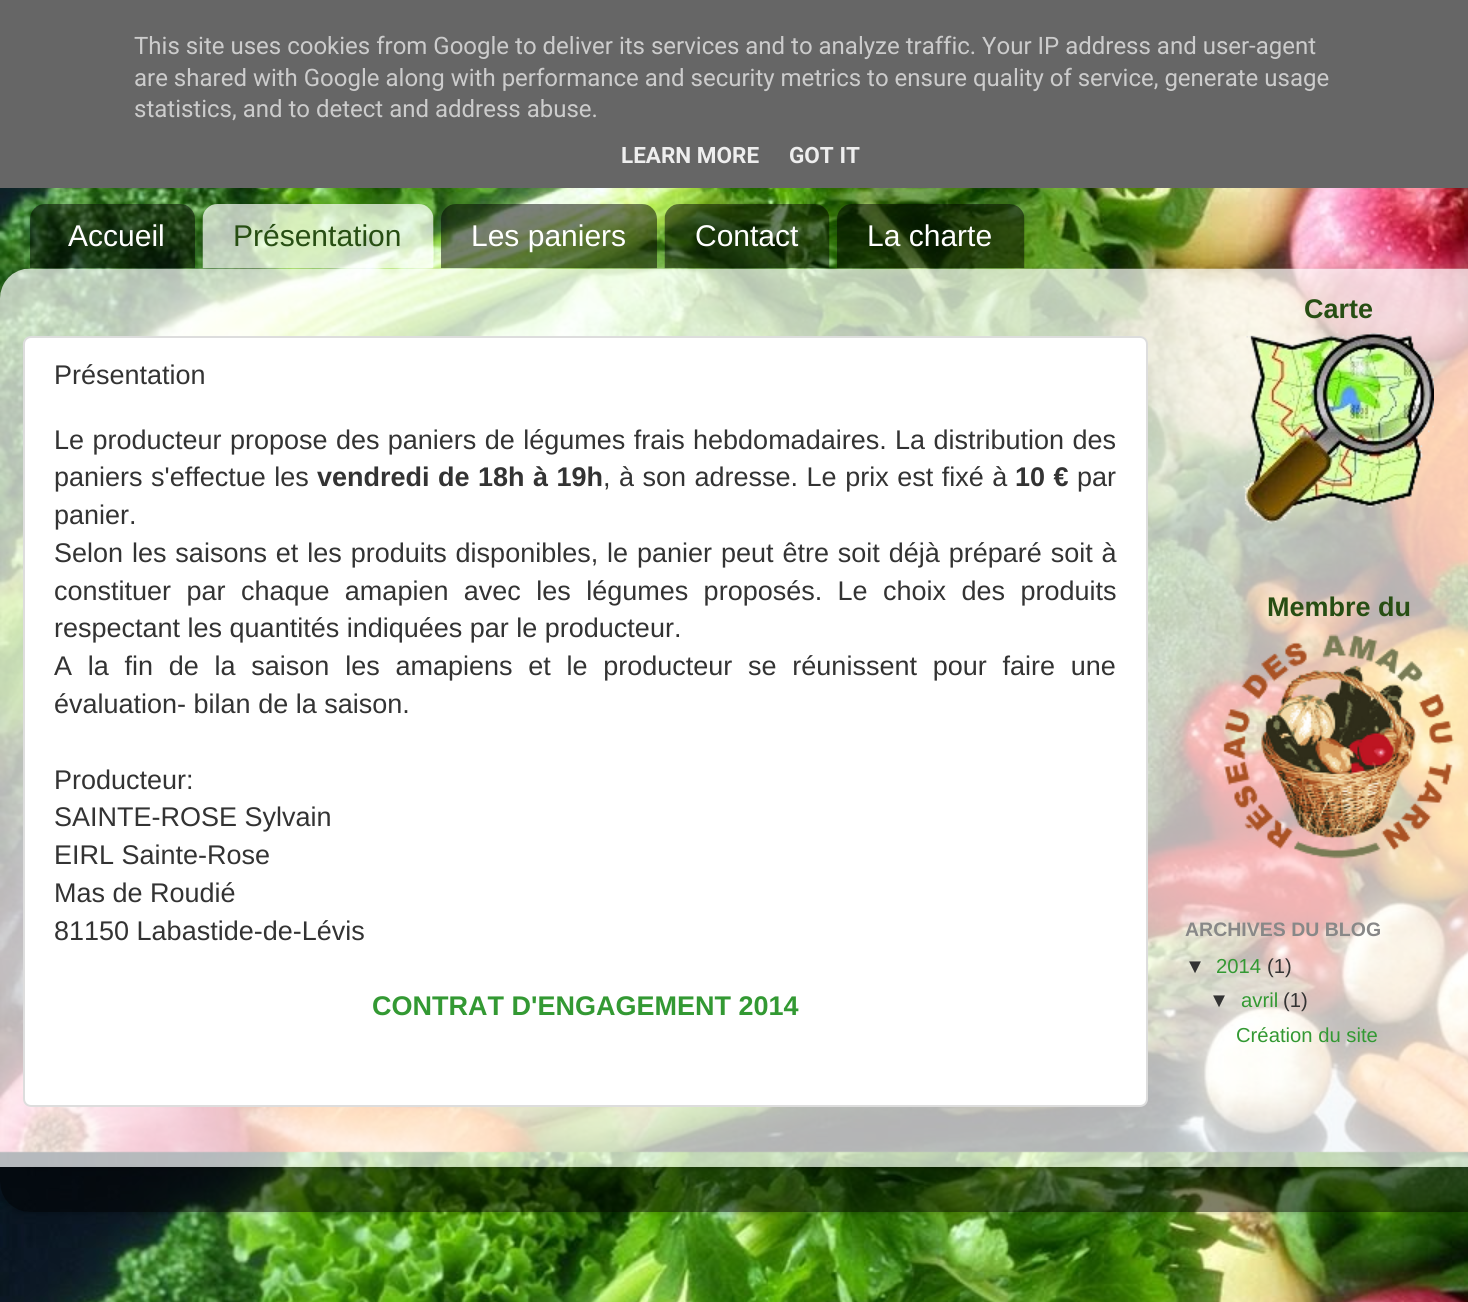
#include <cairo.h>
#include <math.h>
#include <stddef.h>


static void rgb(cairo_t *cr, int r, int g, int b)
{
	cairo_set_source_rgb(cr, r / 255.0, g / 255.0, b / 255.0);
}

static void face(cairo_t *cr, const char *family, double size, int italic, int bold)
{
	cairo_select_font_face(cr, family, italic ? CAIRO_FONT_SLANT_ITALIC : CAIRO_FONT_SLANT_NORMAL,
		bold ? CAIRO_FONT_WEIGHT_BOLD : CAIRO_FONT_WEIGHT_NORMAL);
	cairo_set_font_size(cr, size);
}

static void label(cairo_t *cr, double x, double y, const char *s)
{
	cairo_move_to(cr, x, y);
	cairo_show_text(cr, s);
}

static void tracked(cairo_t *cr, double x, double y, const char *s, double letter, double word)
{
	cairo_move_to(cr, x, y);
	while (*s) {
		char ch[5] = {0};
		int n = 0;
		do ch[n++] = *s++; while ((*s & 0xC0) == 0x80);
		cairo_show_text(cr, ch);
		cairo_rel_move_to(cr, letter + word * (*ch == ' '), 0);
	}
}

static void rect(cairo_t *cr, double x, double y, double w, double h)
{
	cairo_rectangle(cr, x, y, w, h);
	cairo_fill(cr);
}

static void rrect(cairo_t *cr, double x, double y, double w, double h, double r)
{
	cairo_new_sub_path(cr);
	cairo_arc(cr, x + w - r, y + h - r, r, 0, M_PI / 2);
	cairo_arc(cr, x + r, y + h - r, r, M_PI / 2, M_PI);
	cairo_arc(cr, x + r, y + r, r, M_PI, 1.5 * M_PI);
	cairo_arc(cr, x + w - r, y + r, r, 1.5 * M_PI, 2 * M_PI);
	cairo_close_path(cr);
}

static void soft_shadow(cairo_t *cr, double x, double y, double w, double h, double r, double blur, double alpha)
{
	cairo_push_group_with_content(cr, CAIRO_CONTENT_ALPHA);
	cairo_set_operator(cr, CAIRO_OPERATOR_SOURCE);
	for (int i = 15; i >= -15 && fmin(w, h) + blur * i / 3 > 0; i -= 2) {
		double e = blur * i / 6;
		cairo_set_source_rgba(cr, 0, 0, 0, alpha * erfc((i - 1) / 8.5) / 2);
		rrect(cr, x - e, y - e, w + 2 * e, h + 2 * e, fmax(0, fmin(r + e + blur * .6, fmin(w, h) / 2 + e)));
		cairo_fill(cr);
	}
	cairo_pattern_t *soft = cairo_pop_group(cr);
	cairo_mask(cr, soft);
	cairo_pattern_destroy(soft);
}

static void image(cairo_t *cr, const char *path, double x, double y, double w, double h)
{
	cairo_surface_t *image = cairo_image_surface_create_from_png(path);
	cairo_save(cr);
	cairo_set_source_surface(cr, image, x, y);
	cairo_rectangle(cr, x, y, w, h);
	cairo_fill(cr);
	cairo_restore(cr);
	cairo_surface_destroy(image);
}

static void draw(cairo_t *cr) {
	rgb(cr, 255, 255, 255);
	cairo_paint(cr);
	image(cr, "image0.png", 0, 188, 1468, 1114);
	rgb(cr, 102, 102, 102);
	rect(cr, 0, 0, 1468, 188);
	face(cr, "Roboto", 24, 0, 0);
	rgb(cr, 204, 204, 204);
	label(cr, 134, 54, "This site uses cookies from Google to deliver its services and to analyze traffic. Your IP address and user-agent");
	label(cr, 134, 86, "are shared with Google along with performance and security metrics to ensure quality of service, generate usage");
	label(cr, 134, 117, "statistics, and to detect and address abuse.");
	face(cr, "Roboto", 22.5, 0, 1);
	rgb(cr, 238, 238, 238);
	label(cr, 621, 163, "LEARN MORE");
	label(cr, 789, 163, "GOT IT");
	image(cr, "image1.png", 30, 204, 165, 65);
	face(cr, "Liberation Sans", 30, 0, 0);
	rgb(cr, 255, 255, 255);
	label(cr, 68, 246, "Accueil");
	image(cr, "image3.png", 441, 204, 216, 65);
	image(cr, "image4.png", 664, 204, 166, 65);
	image(cr, "image5.png", 837, 204, 188, 65);
	cairo_save(cr);
	cairo_set_fill_rule(cr, CAIRO_FILL_RULE_EVEN_ODD);
	cairo_new_path(cr);
	cairo_move_to(cr, 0, 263);
	cairo_line_to(cr, 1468, 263);
	cairo_line_to(cr, 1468, 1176);
	cairo_line_to(cr, 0, 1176);
	cairo_close_path(cr);
	cairo_move_to(cr, 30, 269);
	cairo_line_to(cr, 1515, 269);
	cairo_curve_to(cr, 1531.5, 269, 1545, 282.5, 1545, 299);
	cairo_line_to(cr, 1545, 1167);
	cairo_line_to(cr, 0, 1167);
	cairo_line_to(cr, 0, 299);
	cairo_curve_to(cr, 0, 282.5, 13.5, 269, 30, 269);
	cairo_close_path(cr);
	cairo_clip(cr);
	rgb(cr, 0, 0, 0);
	soft_shadow(cr, 0, 270, 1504, 899, 30, 2, 0.15);
	cairo_restore(cr);
	image(cr, "image6.png", 0, 268, 1468, 899);
	cairo_save(cr);
	cairo_rectangle(cr, 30, 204, 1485, 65);
	cairo_clip(cr);
	cairo_set_fill_rule(cr, CAIRO_FILL_RULE_EVEN_ODD);
	cairo_new_path(cr);
	cairo_move_to(cr, 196, 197);
	cairo_line_to(cr, 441, 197);
	cairo_line_to(cr, 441, 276);
	cairo_line_to(cr, 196, 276);
	cairo_close_path(cr);
	cairo_move_to(cr, 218, 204);
	cairo_line_to(cr, 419, 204);
	cairo_curve_to(cr, 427.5, 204, 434, 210.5, 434, 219);
	cairo_line_to(cr, 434, 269);
	cairo_line_to(cr, 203, 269);
	cairo_line_to(cr, 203, 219);
	cairo_curve_to(cr, 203, 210.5, 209.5, 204, 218, 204);
	cairo_close_path(cr);
	cairo_clip(cr);
	rgb(cr, 0, 0, 0);
	soft_shadow(cr, 203, 204, 231, 65, 15, 2, 0.15);
	cairo_restore(cr);
	image(cr, "image2.png", 202, 204, 232, 65);
	rgb(cr, 39, 78, 19);
	label(cr, 233, 246, "Présentation");
	rgb(cr, 255, 255, 255);
	label(cr, 471, 246, "Les paniers");
	label(cr, 695, 246, "Contact");
	label(cr, 867, 246, "La charte");
	rrect(cr, 24, 337, 1123, 769, 7);
	cairo_fill_preserve(cr);
	rgb(cr, 221, 221, 221);
	cairo_stroke(cr);
	face(cr, "Liberation Sans", 27, 0, 0);
	rgb(cr, 51, 51, 51);
	label(cr, 54, 384, "Présentation");
	tracked(cr, 54, 449, "Le producteur propose des paniers de légumes frais hebdomadaires. La distribution des", 0, 0.9);
	tracked(cr, 54, 486, "paniers s'effectue les", 0, 1);
	face(cr, "Liberation Sans", 27, 0, 1);
	tracked(cr, 317, 486, "vendredi de 18h à 19h", 0, 1);
	face(cr, "Liberation Sans", 27, 0, 0);
	tracked(cr, 603, 486, ", à son adresse. Le prix est fixé à", 0, 1);
	face(cr, "Liberation Sans", 27, 0, 1);
	tracked(cr, 1015, 486, "10 €", 0, 1);
	face(cr, "Liberation Sans", 27, 0, 0);
	label(cr, 1077, 486, "par");
	label(cr, 54, 524, "panier.");
	tracked(cr, 54, 562, "Selon les saisons et les produits disponibles, le panier peut être soit déjà préparé soit à", 0, 1.4);
	tracked(cr, 54, 600, "constituer par chaque amapien avec les légumes proposés. Le choix des produits", 0, 7.9);
	label(cr, 54, 637, "respectant les quantités indiquées par le producteur.");
	tracked(cr, 54, 675, "A la fin de la saison les amapiens et le producteur se réunissent pour faire une", 0, 8.25);
	label(cr, 54, 713, "évaluation- bilan de la saison.");
	label(cr, 54, 789, "Producteur:");
	label(cr, 54, 826, "SAINTE-ROSE Sylvain");
	label(cr, 54, 864, "EIRL Sainte-Rose");
	label(cr, 54, 902, "Mas de Roudié");
	label(cr, 54, 940, "81150 Labastide-de-Lévis");
	face(cr, "Liberation Sans", 27, 0, 1);
	rgb(cr, 51, 153, 51);
	label(cr, 372, 1015, "CONTRAT D'ENGAGEMENT 2014");
	rgb(cr, 39, 78, 19);
	label(cr, 1304, 318, "Carte");
	image(cr, "image7.png", 1243, 328, 191, 196);
	label(cr, 1267, 616, "Membre du");
	image(cr, "image8.png", 1223, 634, 231, 225);
	face(cr, "Liberation Sans", 19.5, 0, 1);
	rgb(cr, 136, 136, 136);
	label(cr, 1185, 936, "ARCHIVES DU BLOG");
	face(cr, "Liberation Sans", 20.25, 0, 0);
	rgb(cr, 51, 51, 51);
	label(cr, 1185, 973, "▼");
	rgb(cr, 51, 153, 51);
	label(cr, 1216, 973, "2014");
	rgb(cr, 51, 51, 51);
	label(cr, 1267, 973, "(1)");
	label(cr, 1209, 1007, "▼");
	rgb(cr, 51, 153, 51);
	label(cr, 1241, 1007, "avril");
	rgb(cr, 51, 51, 51);
	label(cr, 1283, 1007, "(1)");
	rgb(cr, 51, 153, 51);
	label(cr, 1236, 1042, "Création du site");
	cairo_save(cr);
	cairo_set_fill_rule(cr, CAIRO_FILL_RULE_EVEN_ODD);
	cairo_new_path(cr);
	cairo_move_to(cr, 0, 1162);
	cairo_line_to(cr, 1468, 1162);
	cairo_line_to(cr, 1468, 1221);
	cairo_line_to(cr, 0, 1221);
	cairo_close_path(cr);
	cairo_move_to(cr, 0, 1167);
	cairo_line_to(cr, 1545, 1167);
	cairo_line_to(cr, 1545, 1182);
	cairo_curve_to(cr, 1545, 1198.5, 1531.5, 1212, 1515, 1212);
	cairo_line_to(cr, 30, 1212);
	cairo_curve_to(cr, 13.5, 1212, 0, 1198.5, 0, 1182);
	cairo_close_path(cr);
	cairo_clip(cr);
	rgb(cr, 0, 0, 0);
	soft_shadow(cr, 0, 1169, 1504, 45, 30, 2, 0.15);
	cairo_restore(cr);
	image(cr, "image9.png", 0, 1167, 1468, 45);
}

int main(void) {
	cairo_surface_t *surface = cairo_image_surface_create(CAIRO_FORMAT_RGB24, 1468, 1302);
	cairo_t *cr = cairo_create(surface);
	cairo_font_options_t *options = cairo_font_options_create();
	cairo_font_options_set_hint_metrics(options, CAIRO_HINT_METRICS_OFF);
	cairo_font_options_set_hint_style(options, CAIRO_HINT_STYLE_NONE);
	cairo_set_font_options(cr, options);
	cairo_set_miter_limit(cr, 4);
	draw(cr);
	cairo_surface_write_to_png(surface, "render.png");
	cairo_font_options_destroy(options);
	cairo_destroy(cr);
	cairo_surface_destroy(surface);
	return 0;
}
